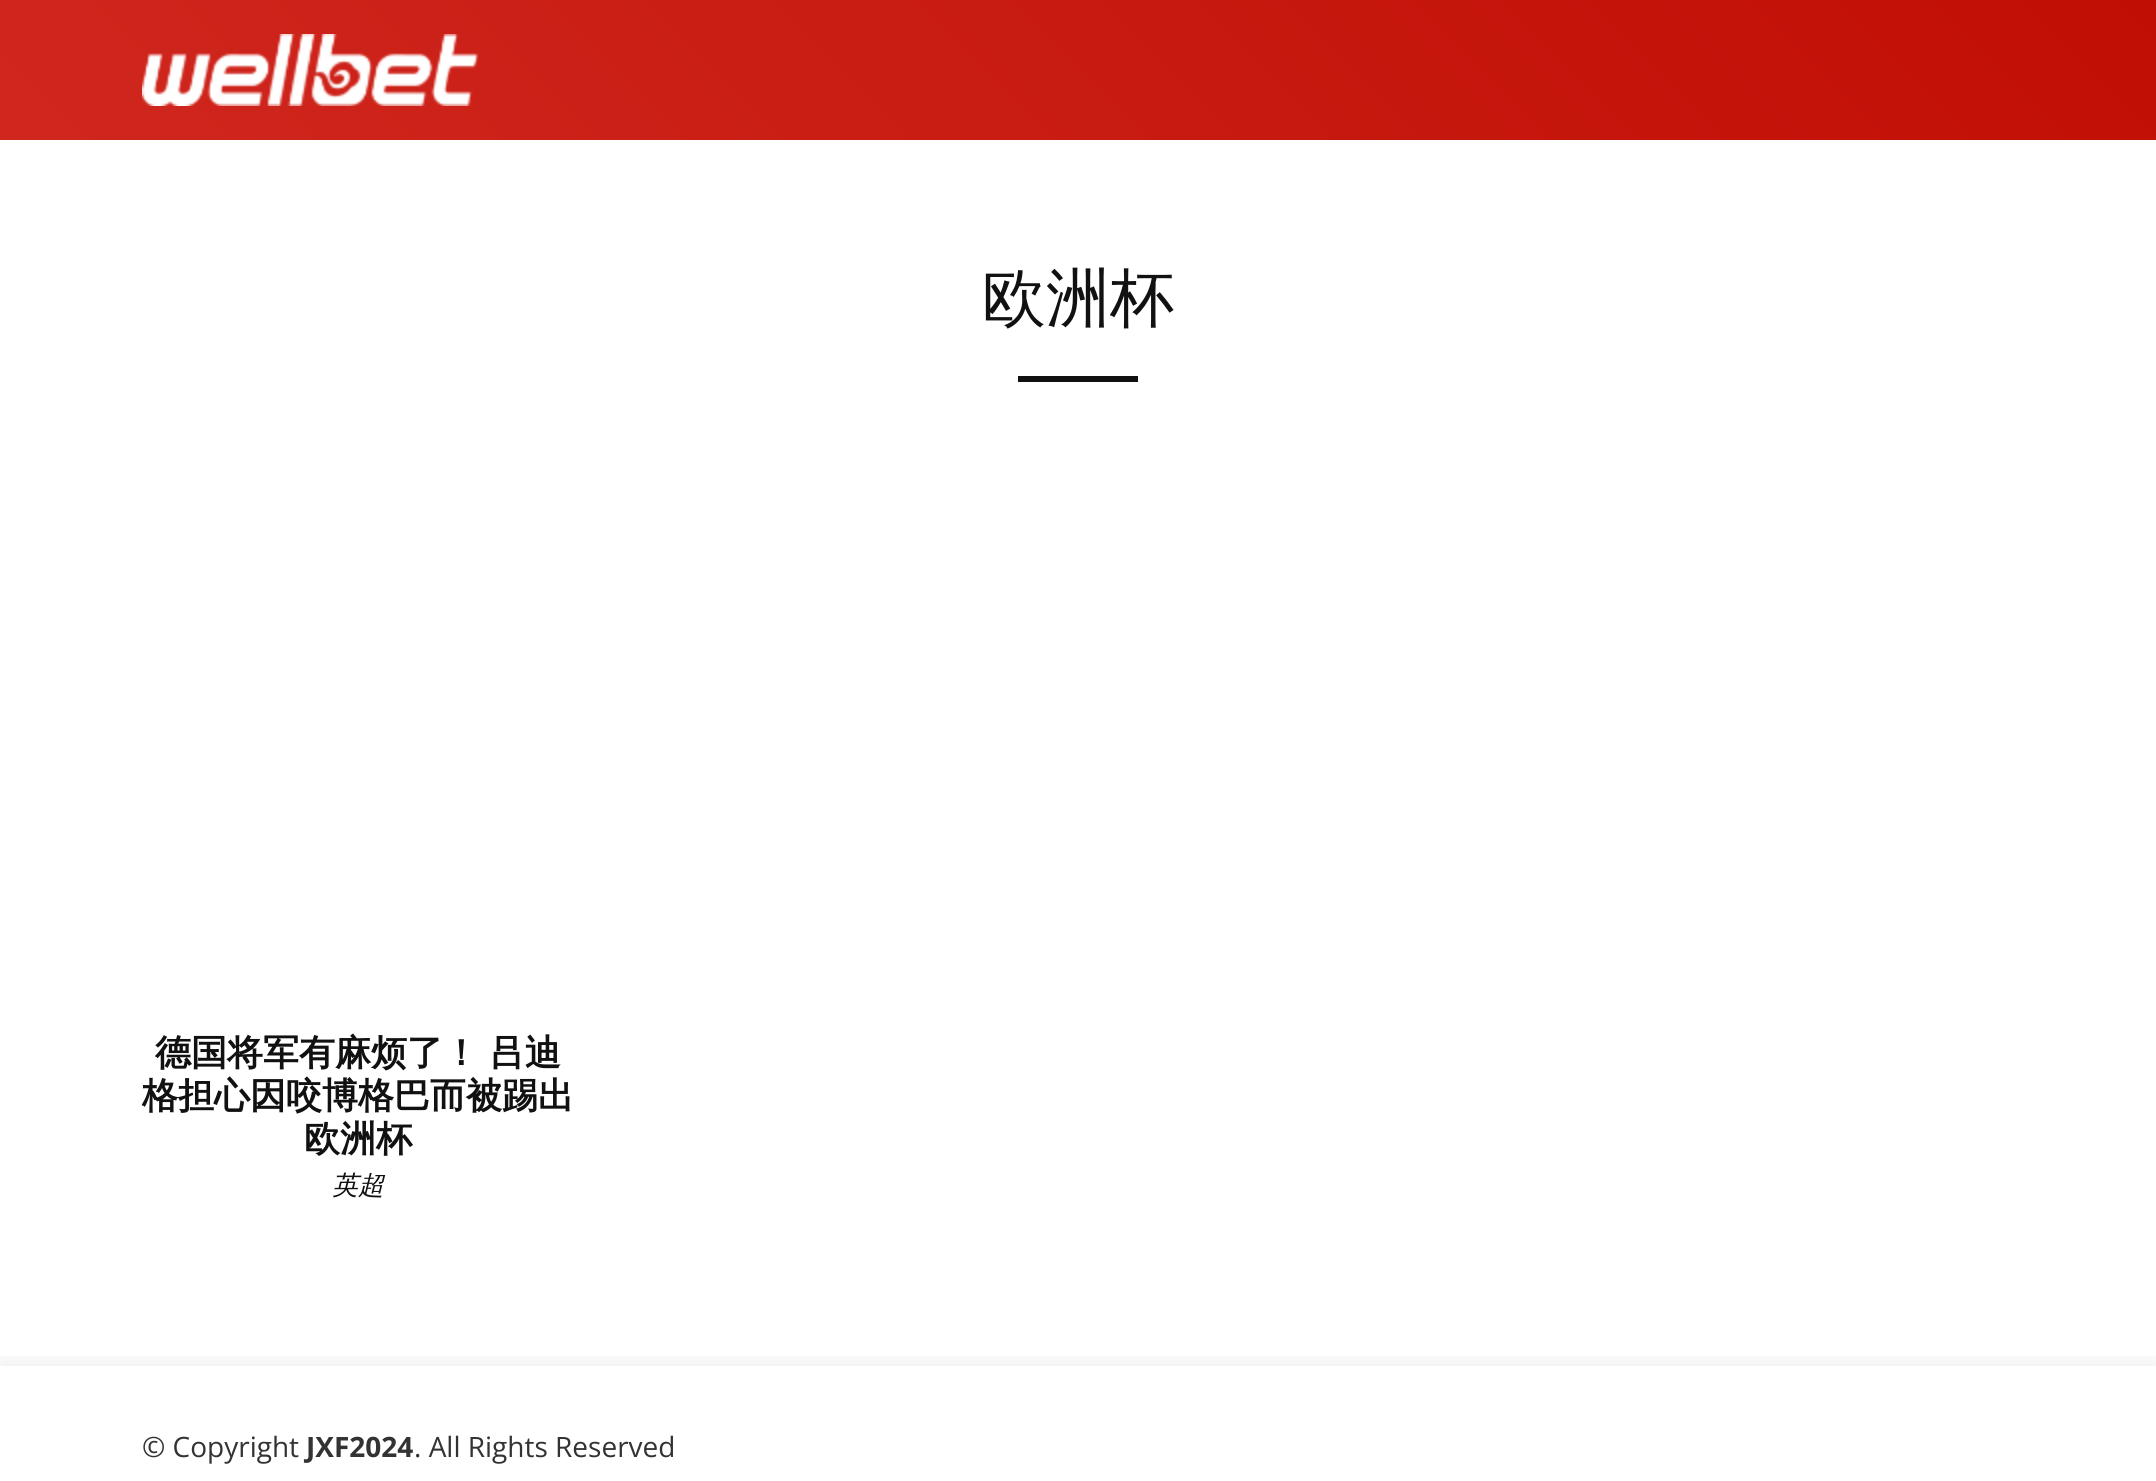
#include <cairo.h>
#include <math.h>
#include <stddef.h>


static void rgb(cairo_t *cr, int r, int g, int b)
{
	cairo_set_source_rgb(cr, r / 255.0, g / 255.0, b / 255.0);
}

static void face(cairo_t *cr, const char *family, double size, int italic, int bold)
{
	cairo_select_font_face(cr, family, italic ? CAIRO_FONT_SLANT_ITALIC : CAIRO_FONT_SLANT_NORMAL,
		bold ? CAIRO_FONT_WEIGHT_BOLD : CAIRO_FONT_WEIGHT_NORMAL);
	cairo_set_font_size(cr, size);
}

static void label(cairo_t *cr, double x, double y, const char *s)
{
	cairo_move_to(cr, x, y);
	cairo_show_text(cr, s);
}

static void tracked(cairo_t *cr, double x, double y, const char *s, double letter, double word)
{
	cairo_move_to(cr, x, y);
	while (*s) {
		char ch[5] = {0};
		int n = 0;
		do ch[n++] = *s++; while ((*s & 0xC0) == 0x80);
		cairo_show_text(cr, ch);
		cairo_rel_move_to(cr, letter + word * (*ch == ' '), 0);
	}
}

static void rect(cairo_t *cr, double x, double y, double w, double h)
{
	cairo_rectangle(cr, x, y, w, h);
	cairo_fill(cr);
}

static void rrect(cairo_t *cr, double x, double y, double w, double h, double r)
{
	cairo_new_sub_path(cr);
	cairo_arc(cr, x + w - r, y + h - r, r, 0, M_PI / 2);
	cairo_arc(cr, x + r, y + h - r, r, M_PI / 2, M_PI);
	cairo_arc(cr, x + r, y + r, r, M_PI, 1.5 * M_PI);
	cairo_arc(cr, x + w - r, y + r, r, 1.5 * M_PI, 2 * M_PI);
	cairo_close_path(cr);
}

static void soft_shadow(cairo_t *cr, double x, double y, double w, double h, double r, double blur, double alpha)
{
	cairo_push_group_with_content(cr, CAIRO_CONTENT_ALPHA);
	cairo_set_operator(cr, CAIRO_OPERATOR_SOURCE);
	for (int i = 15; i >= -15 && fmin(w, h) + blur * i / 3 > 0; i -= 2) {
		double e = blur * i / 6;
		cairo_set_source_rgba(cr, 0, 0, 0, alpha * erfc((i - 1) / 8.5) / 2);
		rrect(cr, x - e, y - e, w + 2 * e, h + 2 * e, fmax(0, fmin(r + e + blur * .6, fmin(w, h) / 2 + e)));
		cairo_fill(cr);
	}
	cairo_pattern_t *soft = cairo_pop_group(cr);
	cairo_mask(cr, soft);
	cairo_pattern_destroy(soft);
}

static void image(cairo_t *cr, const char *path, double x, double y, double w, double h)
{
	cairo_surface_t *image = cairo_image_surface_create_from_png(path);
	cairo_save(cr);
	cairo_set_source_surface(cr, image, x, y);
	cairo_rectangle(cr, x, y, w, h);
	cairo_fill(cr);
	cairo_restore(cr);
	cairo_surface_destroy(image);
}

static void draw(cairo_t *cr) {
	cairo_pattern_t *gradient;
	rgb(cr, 255, 255, 255);
	cairo_paint(cr);
	gradient = cairo_pattern_create_linear(504, 644, 1652, -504);
	cairo_pattern_add_color_stop_rgba(gradient, 0, 0.812, 0.153, 0.118, 1);
	cairo_pattern_add_color_stop_rgba(gradient, 1, 0.757, 0.055, 0.016, 1);
	cairo_set_source(cr, gradient);
	cairo_pattern_destroy(gradient);
	rect(cr, 0, 0, 2156, 140);
	image(cr, "image0.png", 142, 34, 336, 72);
	face(cr, "WenQuanYi Zen Hei Medium", 64, 0, 0);
	rgb(cr, 17, 17, 17);
	label(cr, 982, 320, "欧洲杯");
	rect(cr, 1018, 376, 120, 6);
	face(cr, "WenQuanYi Zen Hei", 36, 0, 1);
	tracked(cr, 155, 1065, "德国将军有麻烦了！ 吕迪", 0, -1);
	label(cr, 142, 1108, "格担心因咬博格巴而被踢出");
	label(cr, 304, 1151, "欧洲杯");
	face(cr, "WenQuanYi Zen Hei Medium", 26, 1, 0);
	label(cr, 332, 1194, "英超");
	cairo_save(cr);
	cairo_rectangle(cr, 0, 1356, 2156, 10);
	cairo_clip(cr);
	rgb(cr, 0, 0, 0);
	soft_shadow(cr, 0, 1366, 2156, 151, 0, 12, 0.1);
	cairo_restore(cr);
	face(cr, "Open Sans", 28, 0, 0);
	rgb(cr, 51, 51, 51);
	label(cr, 142, 1457, "© Copyright");
	face(cr, "Open Sans", 28, 0, 1);
	label(cr, 306, 1457, "JXF2024");
	face(cr, "Open Sans", 28, 0, 0);
	label(cr, 414, 1457, ". All Rights Reserved");
}

int main(void) {
	cairo_surface_t *surface = cairo_image_surface_create(CAIRO_FORMAT_RGB24, 2156, 1481);
	cairo_t *cr = cairo_create(surface);
	cairo_font_options_t *options = cairo_font_options_create();
	cairo_font_options_set_hint_metrics(options, CAIRO_HINT_METRICS_OFF);
	cairo_font_options_set_hint_style(options, CAIRO_HINT_STYLE_NONE);
	cairo_set_font_options(cr, options);
	cairo_set_miter_limit(cr, 4);
	draw(cr);
	cairo_surface_write_to_png(surface, "render.png");
	cairo_font_options_destroy(options);
	cairo_destroy(cr);
	cairo_surface_destroy(surface);
	return 0;
}
